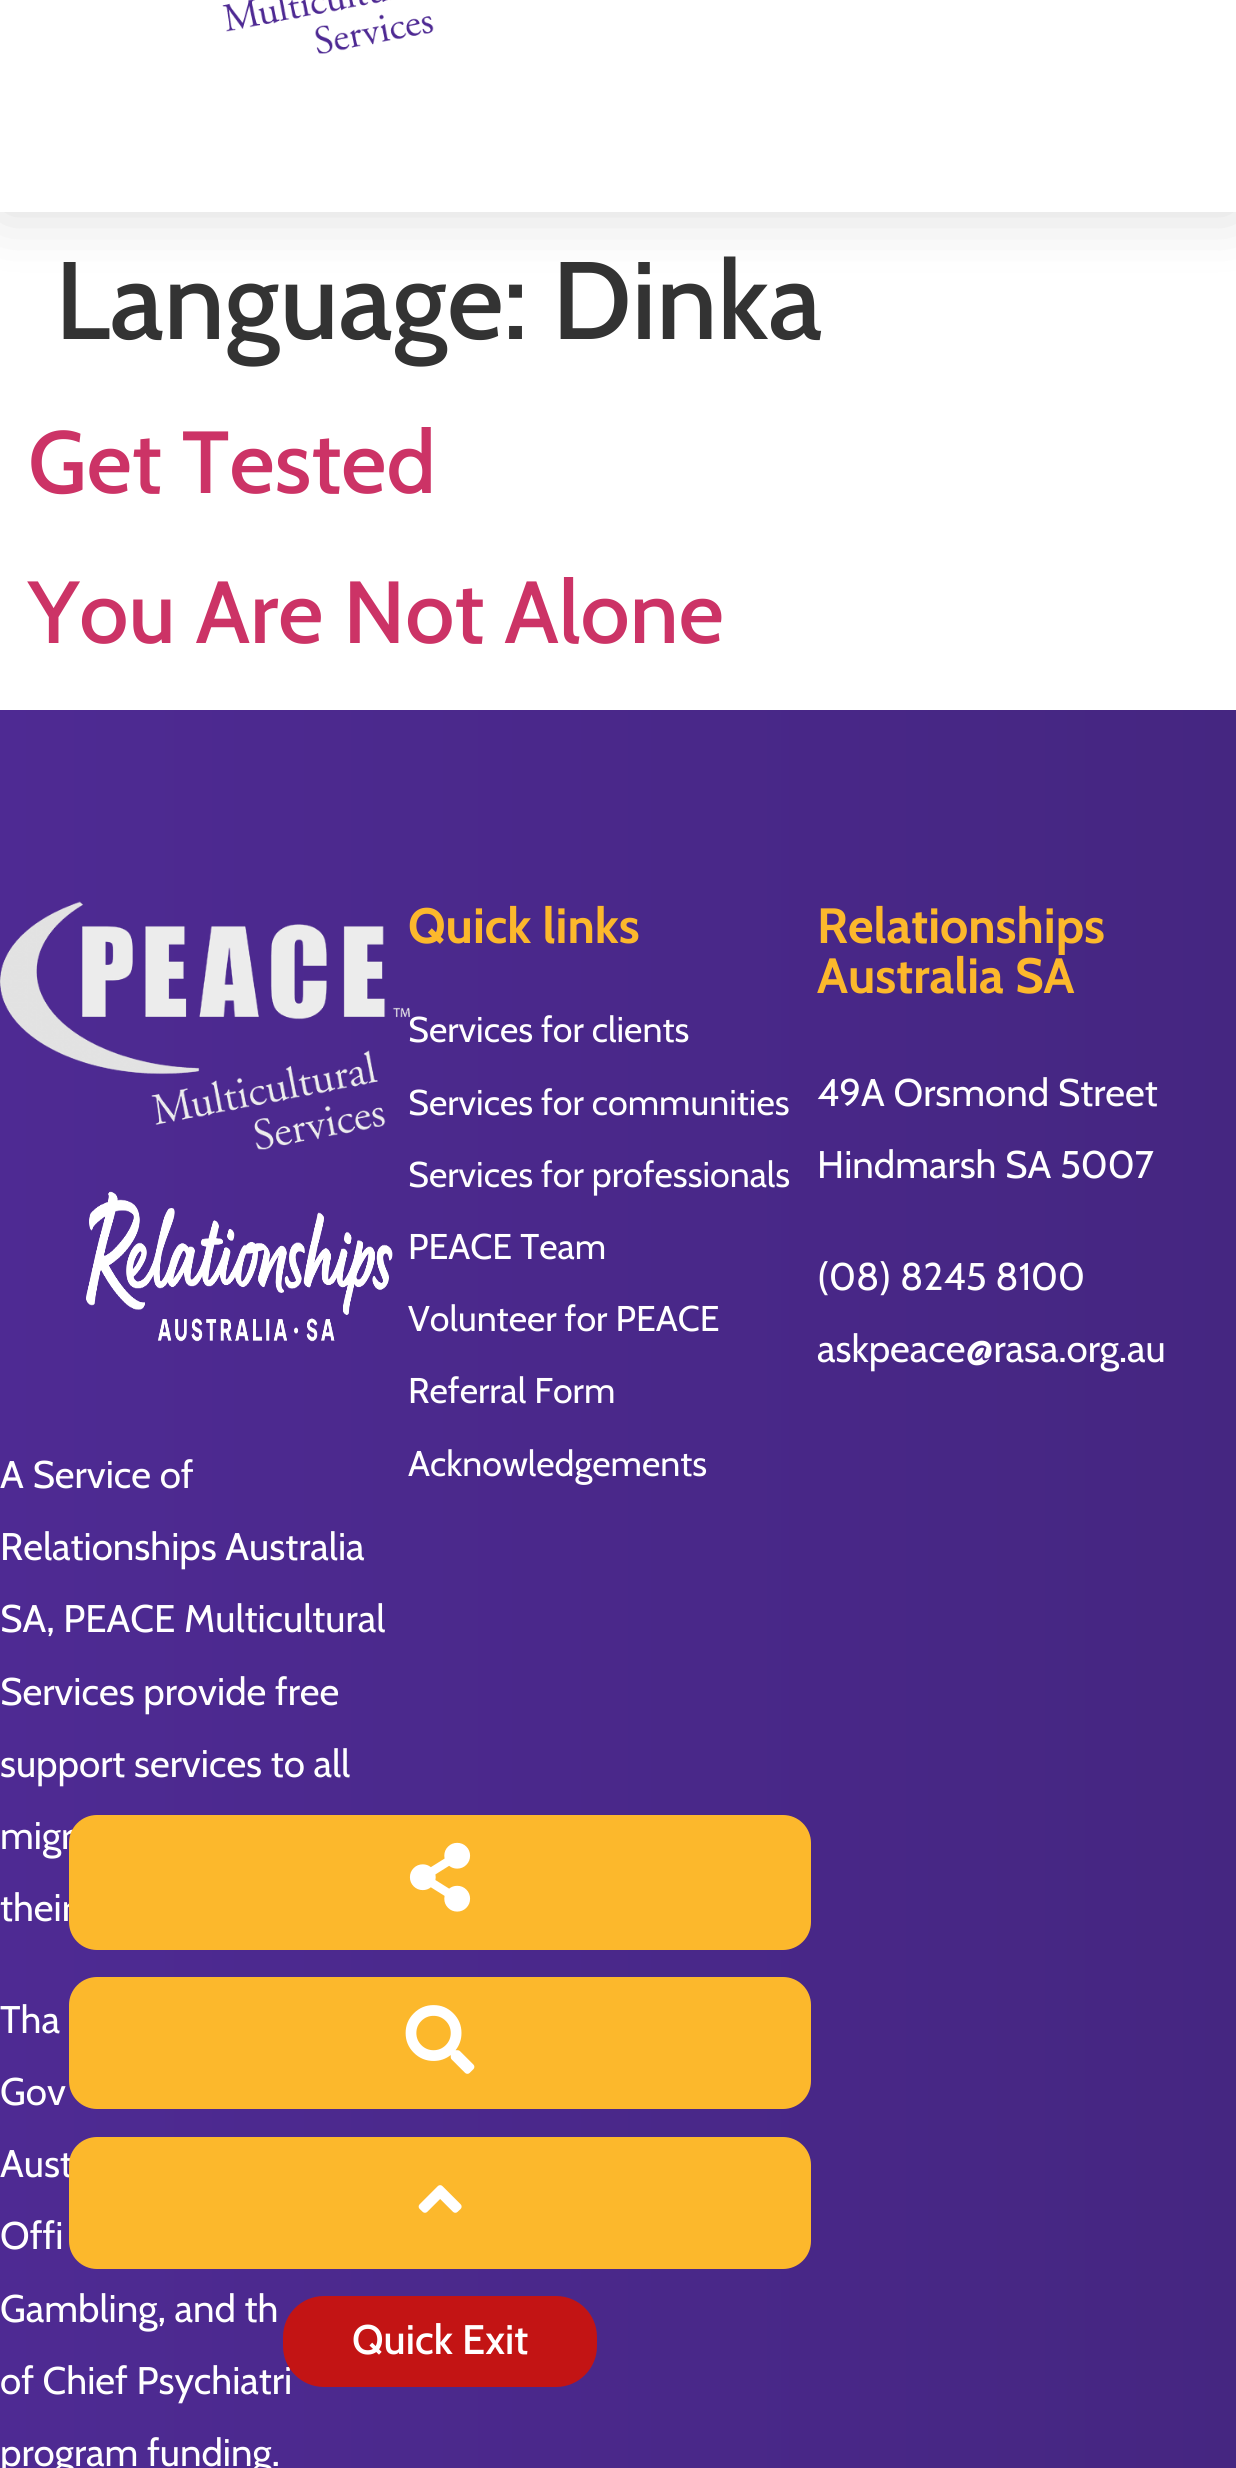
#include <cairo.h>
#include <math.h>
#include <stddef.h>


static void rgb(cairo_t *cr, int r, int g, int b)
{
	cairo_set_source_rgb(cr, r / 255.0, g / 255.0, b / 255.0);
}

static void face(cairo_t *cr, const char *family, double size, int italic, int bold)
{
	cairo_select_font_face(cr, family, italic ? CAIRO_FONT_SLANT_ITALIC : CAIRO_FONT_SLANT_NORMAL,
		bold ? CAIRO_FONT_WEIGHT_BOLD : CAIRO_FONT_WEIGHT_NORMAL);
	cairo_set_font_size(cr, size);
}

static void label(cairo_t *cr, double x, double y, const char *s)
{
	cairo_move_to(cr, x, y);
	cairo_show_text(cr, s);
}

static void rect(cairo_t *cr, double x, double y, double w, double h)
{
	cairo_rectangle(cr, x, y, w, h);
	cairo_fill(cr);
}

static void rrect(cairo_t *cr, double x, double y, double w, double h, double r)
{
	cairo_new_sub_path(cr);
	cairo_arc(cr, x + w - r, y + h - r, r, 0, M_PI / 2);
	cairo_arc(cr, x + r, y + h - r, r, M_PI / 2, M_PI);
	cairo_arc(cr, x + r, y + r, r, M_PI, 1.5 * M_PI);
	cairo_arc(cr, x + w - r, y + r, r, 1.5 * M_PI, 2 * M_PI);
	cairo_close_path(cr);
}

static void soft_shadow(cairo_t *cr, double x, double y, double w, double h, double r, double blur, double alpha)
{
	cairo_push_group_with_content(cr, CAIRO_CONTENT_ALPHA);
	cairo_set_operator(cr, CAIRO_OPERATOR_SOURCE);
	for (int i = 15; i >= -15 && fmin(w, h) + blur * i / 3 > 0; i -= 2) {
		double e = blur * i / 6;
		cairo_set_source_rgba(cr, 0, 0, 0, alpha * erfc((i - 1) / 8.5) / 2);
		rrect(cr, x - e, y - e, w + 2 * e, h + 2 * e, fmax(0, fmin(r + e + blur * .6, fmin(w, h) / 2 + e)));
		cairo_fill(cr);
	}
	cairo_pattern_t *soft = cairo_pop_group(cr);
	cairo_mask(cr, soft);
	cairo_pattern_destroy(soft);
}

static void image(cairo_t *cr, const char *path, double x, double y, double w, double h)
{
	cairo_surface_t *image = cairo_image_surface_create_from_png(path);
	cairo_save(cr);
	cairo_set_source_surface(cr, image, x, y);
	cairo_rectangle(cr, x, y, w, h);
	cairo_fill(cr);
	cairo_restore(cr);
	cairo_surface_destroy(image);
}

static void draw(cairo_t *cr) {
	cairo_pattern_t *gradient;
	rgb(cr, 255, 255, 255);
	cairo_paint(cr);
	rgb(cr, 0, 0, 0);
	soft_shadow(cr, 0, -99, 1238, 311, 0, 33, 0.15);
	rgb(cr, 255, 255, 255);
	rect(cr, 0, 0, 1236, 212);
	image(cr, "image0.png", 222, 0, 212, 54);
	face(cr, "Cabin Medium", 110, 0, 0);
	rgb(cr, 51, 51, 51);
	label(cr, 55, 339, "Language: Dinka");
	face(cr, "Cabin Medium", 88, 0, 0);
	rgb(cr, 204, 51, 102);
	label(cr, 28, 493, "Get Tested");
	label(cr, 28, 643, "You Are Not Alone");
	gradient = cairo_pattern_create_linear(0, 1920, 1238, 1920);
	cairo_pattern_add_color_stop_rgba(gradient, 0, 0.306, 0.165, 0.576, 1);
	cairo_pattern_add_color_stop_rgba(gradient, 1, 0.271, 0.149, 0.506, 1);
	cairo_set_source(cr, gradient);
	cairo_pattern_destroy(gradient);
	rect(cr, 0, 710, 1236, 1758);
	face(cr, "Cabin", 49.5, 0, 1);
	rgb(cr, 252, 184, 44);
	label(cr, 408, 943, "Quick links");
	face(cr, "Cabin", 35.75, 0, 0);
	rgb(cr, 255, 255, 255);
	label(cr, 408, 1042, "Services for clients");
	label(cr, 408, 1115, "Services for communities");
	label(cr, 408, 1187, "Services for professionals");
	label(cr, 408, 1259, "PEACE Team");
	label(cr, 408, 1331, "Volunteer for PEACE");
	label(cr, 408, 1403, "Referral Form");
	label(cr, 408, 1476, "Acknowledgements");
	face(cr, "Cabin", 49.5, 0, 1);
	rgb(cr, 252, 184, 44);
	label(cr, 817, 943, "Relationships");
	label(cr, 817, 993, "Australia SA");
	face(cr, "Cabin", 38.5, 0, 0);
	rgb(cr, 255, 255, 255);
	label(cr, 817, 1106, "49A Orsmond Street");
	label(cr, 817, 1178, "Hindmarsh SA 5007");
	label(cr, 817, 1290, "(08) 8245 8100");
	label(cr, 817, 1362, "askpeace@rasa.org.au");
	image(cr, "image1.png", 0, 901, 410, 249);
	image(cr, "image2.png", 86, 1191, 307, 151);
	label(cr, 0, 1488, "A Service of");
	label(cr, 0, 1560, "Relationships Australia");
	label(cr, 0, 1632, "SA, PEACE Multicultural");
	label(cr, 0, 1705, "Services provide free");
	label(cr, 0, 1777, "support services to all");
	label(cr, 0, 1849, "migr");
	label(cr, 0, 1921, "their");
	label(cr, 0, 2033, "Tha");
	label(cr, 0, 2105, "Gov");
	label(cr, 0, 2177, "Aust");
	label(cr, 0, 2249, "Offi");
	label(cr, 0, 2322, "Gambling, and th");
	label(cr, 0, 2394, "of Chief Psychiatri");
	label(cr, 0, 2466, "program funding.");
	rgb(cr, 252, 184, 44);
	rrect(cr, 69, 1815, 742, 135, 28);
	cairo_fill(cr);
	image(cr, "image3.png", 409, 1842, 62, 70);
	rrect(cr, 69, 1977, 742, 132, 28);
	cairo_fill(cr);
	image(cr, "image4.png", 405, 2005, 70, 69);
	rrect(cr, 69, 2137, 742, 132, 28);
	cairo_fill(cr);
	image(cr, "image5.png", 418, 2185, 44, 28);
	rgb(cr, 195, 20, 20);
	rrect(cr, 283, 2296, 314, 91, 41);
	cairo_fill(cr);
	face(cr, "Cabin Medium", 41.25, 0, 0);
	rgb(cr, 255, 255, 255);
	label(cr, 352, 2354, "Quick Exit");
}

int main(void) {
	cairo_surface_t *surface = cairo_image_surface_create(CAIRO_FORMAT_RGB24, 1236, 2468);
	cairo_t *cr = cairo_create(surface);
	cairo_font_options_t *options = cairo_font_options_create();
	cairo_font_options_set_hint_metrics(options, CAIRO_HINT_METRICS_OFF);
	cairo_font_options_set_hint_style(options, CAIRO_HINT_STYLE_NONE);
	cairo_set_font_options(cr, options);
	cairo_set_miter_limit(cr, 4);
	draw(cr);
	cairo_surface_write_to_png(surface, "render.png");
	cairo_font_options_destroy(options);
	cairo_destroy(cr);
	cairo_surface_destroy(surface);
	return 0;
}
